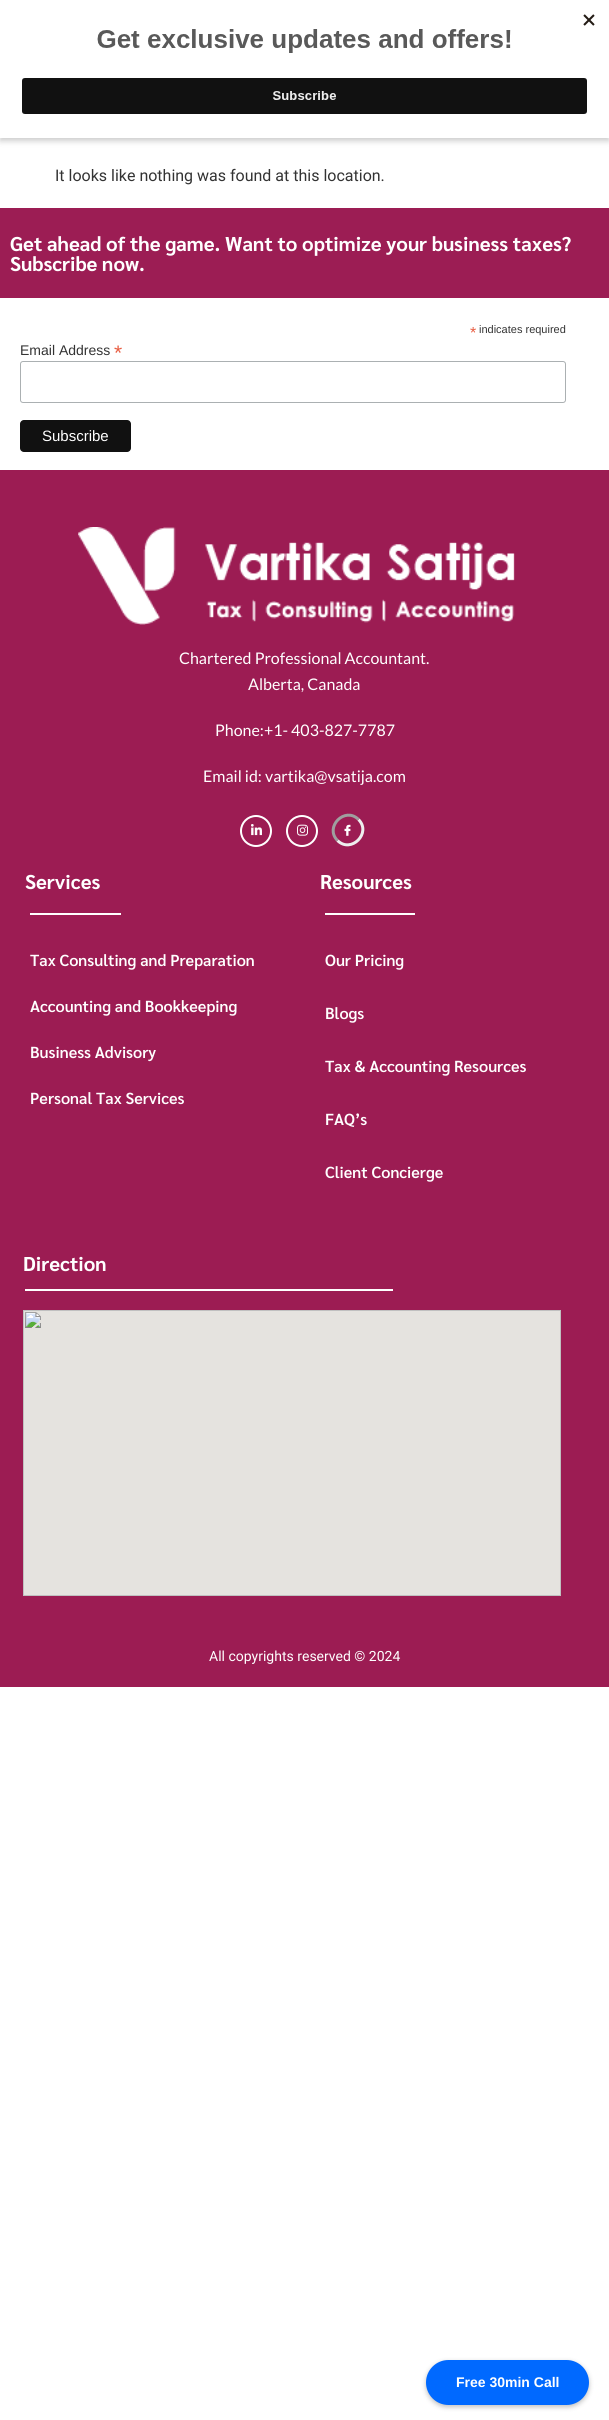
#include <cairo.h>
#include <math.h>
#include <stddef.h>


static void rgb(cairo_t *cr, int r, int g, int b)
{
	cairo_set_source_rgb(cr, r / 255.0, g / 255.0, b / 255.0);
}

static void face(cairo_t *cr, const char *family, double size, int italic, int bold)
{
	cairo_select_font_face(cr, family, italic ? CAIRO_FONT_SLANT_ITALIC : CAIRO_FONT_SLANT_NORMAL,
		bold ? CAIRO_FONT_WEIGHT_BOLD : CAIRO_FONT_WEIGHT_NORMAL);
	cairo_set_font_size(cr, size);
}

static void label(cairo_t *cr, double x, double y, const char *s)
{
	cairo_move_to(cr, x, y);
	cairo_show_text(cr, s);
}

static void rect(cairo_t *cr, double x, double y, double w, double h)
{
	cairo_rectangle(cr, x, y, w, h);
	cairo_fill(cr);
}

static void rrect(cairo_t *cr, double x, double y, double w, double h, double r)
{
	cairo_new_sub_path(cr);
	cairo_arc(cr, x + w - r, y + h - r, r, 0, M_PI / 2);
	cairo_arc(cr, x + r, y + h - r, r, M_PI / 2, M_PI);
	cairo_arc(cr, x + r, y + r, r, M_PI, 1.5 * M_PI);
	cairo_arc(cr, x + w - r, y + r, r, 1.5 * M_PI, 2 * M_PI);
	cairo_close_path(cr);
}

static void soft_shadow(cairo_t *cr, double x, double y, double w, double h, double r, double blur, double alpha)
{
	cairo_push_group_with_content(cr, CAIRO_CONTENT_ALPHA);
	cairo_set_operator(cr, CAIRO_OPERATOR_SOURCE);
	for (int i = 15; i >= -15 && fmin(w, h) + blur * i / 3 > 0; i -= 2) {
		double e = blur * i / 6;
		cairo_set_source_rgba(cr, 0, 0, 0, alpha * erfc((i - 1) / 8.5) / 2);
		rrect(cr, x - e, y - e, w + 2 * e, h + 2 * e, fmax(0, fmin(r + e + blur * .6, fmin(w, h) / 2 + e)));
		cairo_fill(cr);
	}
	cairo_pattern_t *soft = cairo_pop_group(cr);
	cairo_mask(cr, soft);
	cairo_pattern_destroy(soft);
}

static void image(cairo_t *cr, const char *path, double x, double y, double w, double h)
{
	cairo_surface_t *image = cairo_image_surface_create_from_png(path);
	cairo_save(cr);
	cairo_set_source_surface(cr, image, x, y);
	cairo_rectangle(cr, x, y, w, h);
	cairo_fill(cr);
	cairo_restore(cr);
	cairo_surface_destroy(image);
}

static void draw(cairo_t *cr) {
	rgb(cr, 255, 255, 255);
	cairo_paint(cr);
	rgb(cr, 0, 0, 0);
	soft_shadow(cr, 0, 3, 609, 138, 0, 3, 0.2);
	rgb(cr, 255, 255, 255);
	rect(cr, 0, 0, 609, 138);
	image(cr, "image0.png", 22, 14, 573, 100);
	face(cr, "Roboto", 16, 0, 0);
	rgb(cr, 51, 51, 51);
	label(cr, 55, 181, "It looks like nothing was found at this location.");
	rgb(cr, 156, 29, 84);
	rect(cr, 0, 208, 609, 90);
	face(cr, "Sarabun", 20, 0, 1);
	rgb(cr, 255, 255, 255);
	label(cr, 10, 251, "Get ahead of the game. Want to optimize your business taxes?");
	label(cr, 10, 271, "Subscribe now.");
	face(cr, "Liberation Sans", 16, 0, 0);
	rgb(cr, 232, 92, 65);
	label(cr, 470, 338, "*");
	face(cr, "Liberation Sans", 11, 0, 0);
	rgb(cr, 51, 51, 51);
	label(cr, 479, 333, "indicates required");
	face(cr, "Liberation Sans", 14, 0, 0);
	label(cr, 20, 355, "Email Address");
	face(cr, "Liberation Sans", 21, 0, 0);
	rgb(cr, 232, 92, 65);
	label(cr, 114, 360, "*");
	rrect(cr, 20.5, 361.5, 545, 41, 2.5);
	rgb(cr, 171, 176, 178);
	cairo_set_line_width(cr, 1);
	cairo_stroke(cr);
	rgb(cr, 17, 17, 17);
	rrect(cr, 20, 420, 111, 32, 4);
	cairo_fill(cr);
	face(cr, "Liberation Sans", 15, 0, 0);
	rgb(cr, 255, 255, 255);
	label(cr, 42, 441, "Subscribe");
	rgb(cr, 156, 28, 83);
	rect(cr, 0, 470, 609, 1217);
	image(cr, "image1.png", 78, 527, 437, 98);
	face(cr, "Lato", 16, 0, 0);
	rgb(cr, 255, 255, 255);
	label(cr, 179, 664, "Chartered Professional Accountant.");
	label(cr, 248, 690, "Alberta, Canada");
	label(cr, 215, 736, "Phone:+1- 403-827-7787");
	label(cr, 203, 782, "Email id: vartika@vsatija.com");
	cairo_new_path(cr);
	cairo_arc(cr, 256, 831, 15, 0, 2 * M_PI);
	cairo_set_line_width(cr, 2);
	cairo_stroke(cr);
	image(cr, "image2.png", 251, 824, 11, 12);
	cairo_arc(cr, 302, 831, 15, 0, 2 * M_PI);
	cairo_stroke(cr);
	image(cr, "image3.png", 297, 824, 11, 12);
	cairo_new_path(cr);
	cairo_move_to(cr, 358.5, 819.5);
	cairo_curve_to(cr, 372, 833, 351, 854, 337.5, 840.5);
	rgb(cr, 238, 238, 238);
	cairo_set_line_width(cr, 3);
	cairo_stroke(cr);
	cairo_new_path(cr);
	cairo_move_to(cr, 337.5, 840.5);
	cairo_curve_to(cr, 324, 827, 345, 806, 358.5, 819.5);
	rgb(cr, 159, 159, 159);
	cairo_stroke(cr);
	image(cr, "image4.png", 344, 824, 7, 12);
	face(cr, "Sarabun", 20, 0, 1);
	rgb(cr, 255, 255, 255);
	label(cr, 25, 889, "Services");
	rect(cr, 30, 913, 91, 2);
	face(cr, "Sarabun SemiBold", 16, 0, 0);
	label(cr, 30, 966, "Tax Consulting and Preparation");
	label(cr, 30, 1012, "Accounting and Bookkeeping");
	label(cr, 30, 1058, "Business Advisory");
	label(cr, 30, 1104, "Personal Tax Services");
	face(cr, "Sarabun", 20, 0, 1);
	label(cr, 320, 889, "Resources");
	rect(cr, 325, 913, 90, 2);
	face(cr, "Sarabun SemiBold", 16, 0, 0);
	label(cr, 325, 966, "Our Pricing");
	label(cr, 325, 1019, "Blogs");
	label(cr, 325, 1072, "Tax & Accounting Resources");
	label(cr, 325, 1125, "FAQ’s");
	label(cr, 325, 1178, "Client Concierge");
	face(cr, "Sarabun", 20, 0, 1);
	label(cr, 23, 1271, "Direction");
	rect(cr, 25, 1289, 368, 2);
	image(cr, "image5.png", 23, 1310, 538, 286);
	face(cr, "Roboto", 14, 0, 0);
	label(cr, 209, 1661, "All copyrights reserved © 2024");
	rgb(cr, 0, 0, 0);
	soft_shadow(cr, 426, 2362, 163, 45, 22.5, 2.5, 0.25);
	rgb(cr, 0, 105, 255);
	rrect(cr, 426, 2360, 163, 45, 22.5);
	cairo_fill(cr);
	face(cr, "Liberation Sans", 14, 0, 1);
	rgb(cr, 255, 255, 255);
	label(cr, 456, 2387, "Free 30min Call");
}

int main(void) {
	cairo_surface_t *surface = cairo_image_surface_create(CAIRO_FORMAT_RGB24, 609, 2420);
	cairo_t *cr = cairo_create(surface);
	cairo_font_options_t *options = cairo_font_options_create();
	cairo_font_options_set_hint_metrics(options, CAIRO_HINT_METRICS_OFF);
	cairo_font_options_set_hint_style(options, CAIRO_HINT_STYLE_NONE);
	cairo_set_font_options(cr, options);
	cairo_set_miter_limit(cr, 4);
	draw(cr);
	cairo_surface_write_to_png(surface, "render.png");
	cairo_font_options_destroy(options);
	cairo_destroy(cr);
	cairo_surface_destroy(surface);
	return 0;
}
